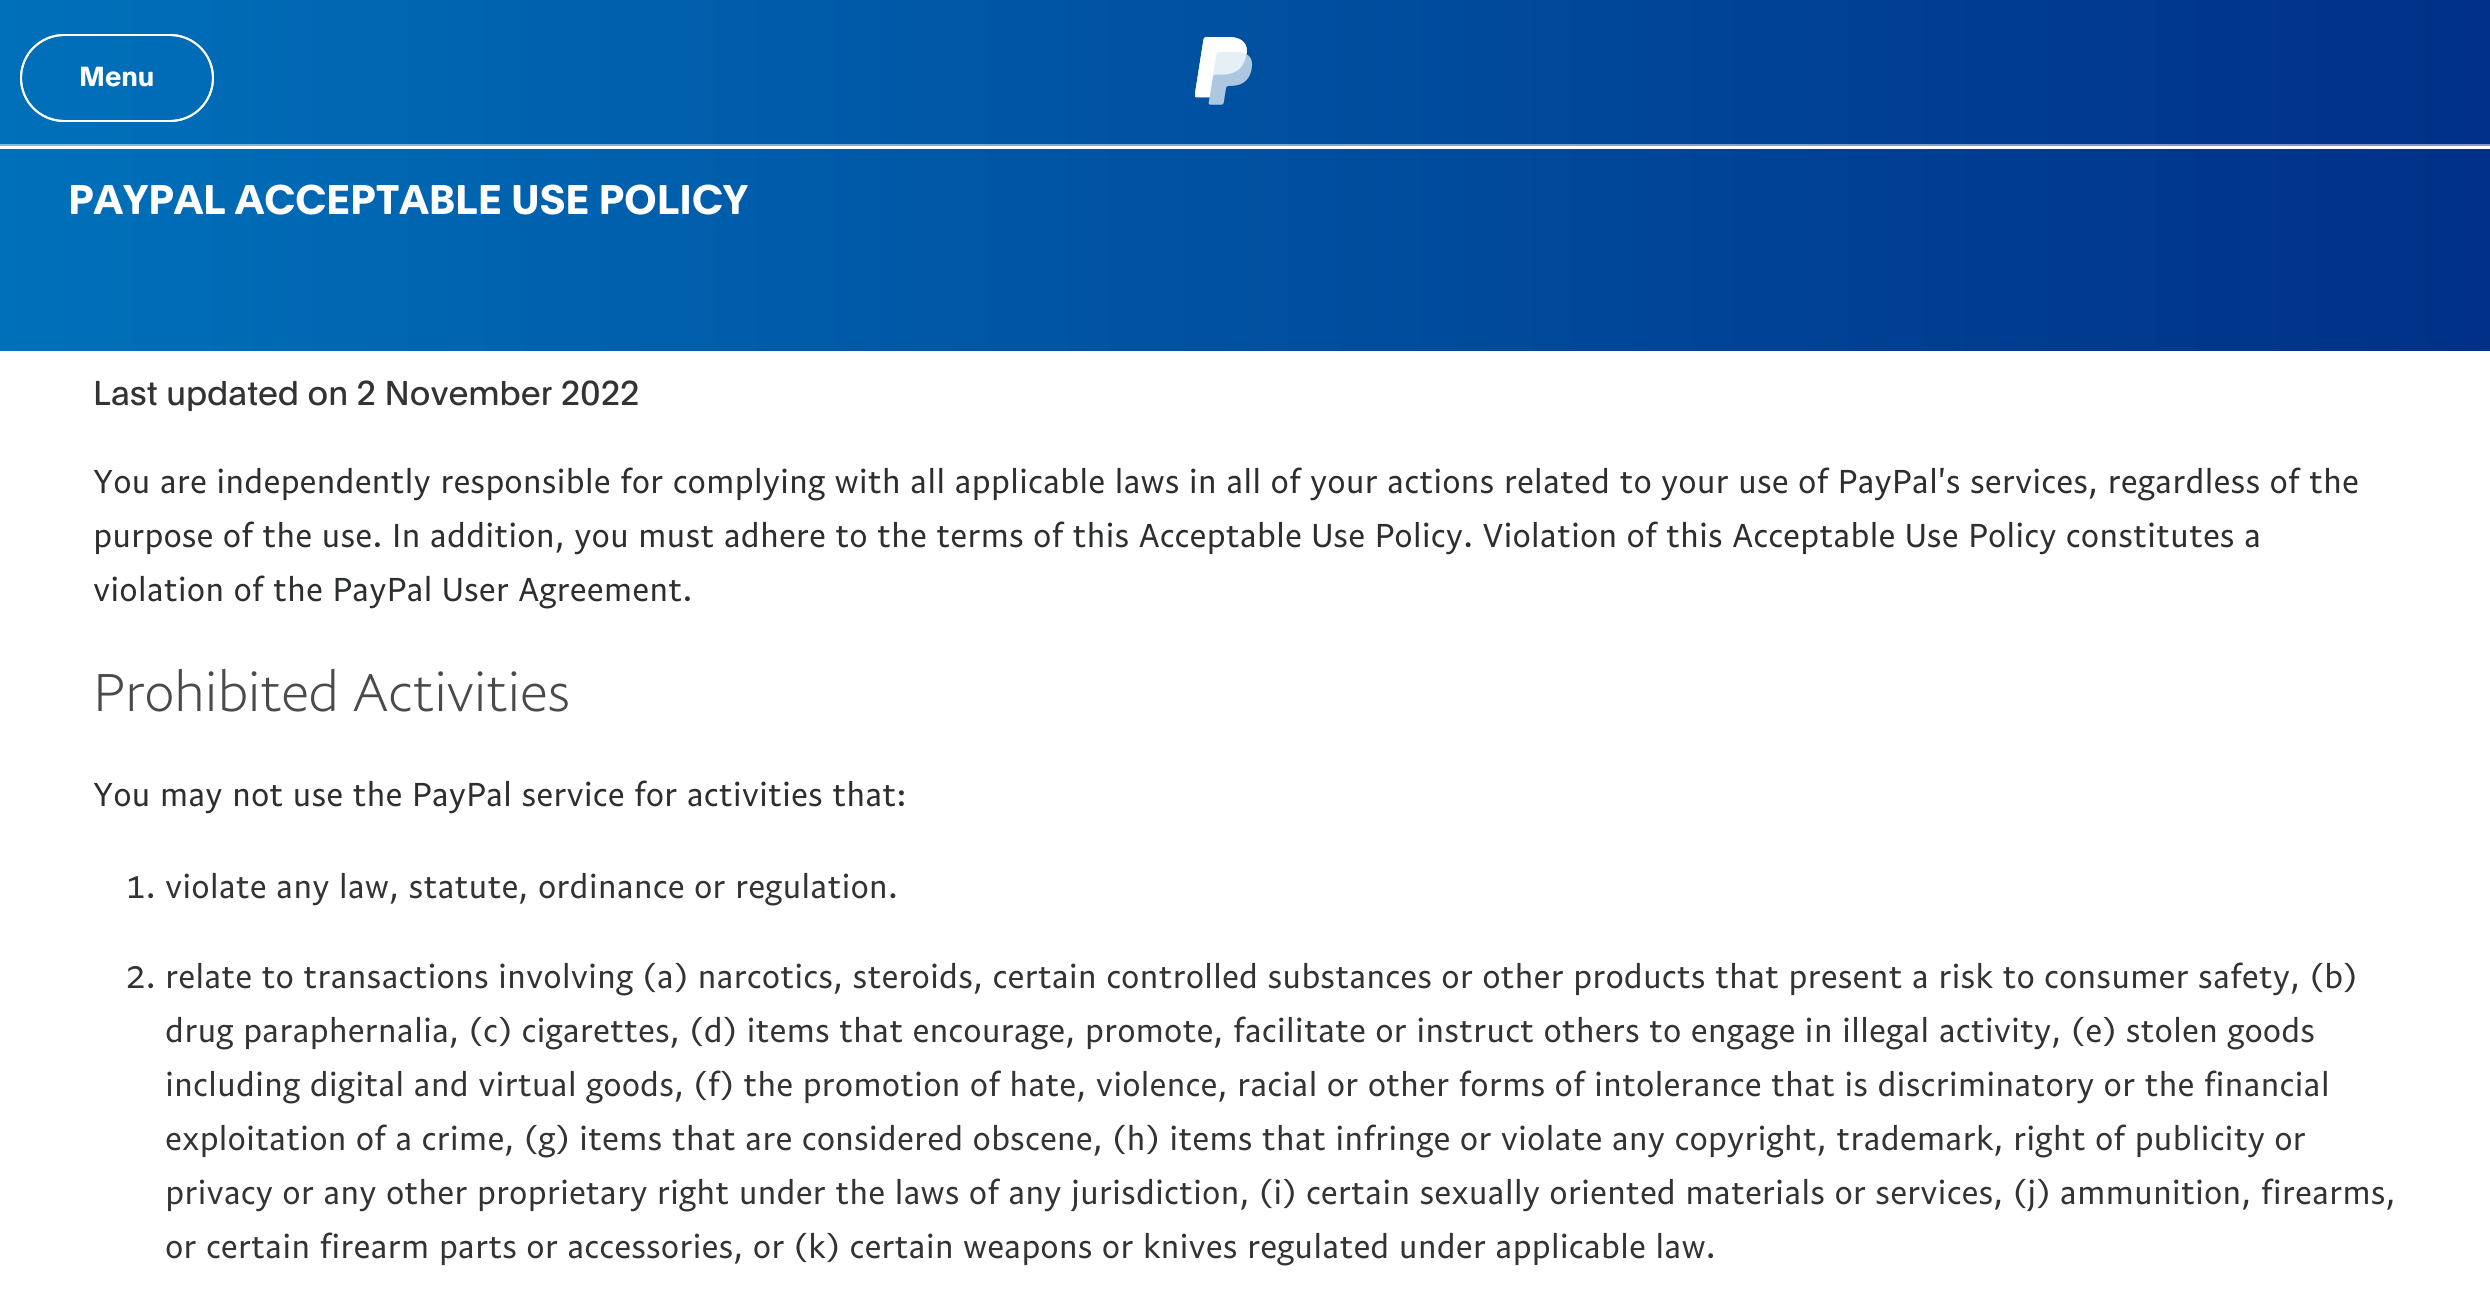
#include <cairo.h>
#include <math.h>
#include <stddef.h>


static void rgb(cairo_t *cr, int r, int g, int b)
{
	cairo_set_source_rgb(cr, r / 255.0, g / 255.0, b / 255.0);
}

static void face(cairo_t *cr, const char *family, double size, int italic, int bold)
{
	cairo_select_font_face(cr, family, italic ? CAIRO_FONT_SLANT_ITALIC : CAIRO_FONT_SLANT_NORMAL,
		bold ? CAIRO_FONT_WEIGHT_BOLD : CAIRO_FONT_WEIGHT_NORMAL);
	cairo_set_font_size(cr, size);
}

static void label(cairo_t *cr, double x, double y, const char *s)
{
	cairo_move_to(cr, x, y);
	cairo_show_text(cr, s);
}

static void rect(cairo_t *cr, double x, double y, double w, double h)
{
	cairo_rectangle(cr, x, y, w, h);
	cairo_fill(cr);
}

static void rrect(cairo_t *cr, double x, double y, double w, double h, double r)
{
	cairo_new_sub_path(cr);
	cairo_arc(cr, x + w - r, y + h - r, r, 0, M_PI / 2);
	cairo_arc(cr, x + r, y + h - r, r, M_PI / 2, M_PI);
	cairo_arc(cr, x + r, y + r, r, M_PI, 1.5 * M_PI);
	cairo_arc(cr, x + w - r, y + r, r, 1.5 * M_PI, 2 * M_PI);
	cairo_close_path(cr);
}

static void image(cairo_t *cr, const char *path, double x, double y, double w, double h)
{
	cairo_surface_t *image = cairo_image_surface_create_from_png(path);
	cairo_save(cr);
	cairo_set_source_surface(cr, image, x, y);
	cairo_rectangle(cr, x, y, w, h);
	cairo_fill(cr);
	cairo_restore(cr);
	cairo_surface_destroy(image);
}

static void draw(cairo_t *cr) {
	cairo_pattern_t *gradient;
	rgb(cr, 255, 255, 255);
	cairo_paint(cr);
	gradient = cairo_pattern_create_linear(0, 72, 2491, 72);
	cairo_pattern_add_color_stop_rgba(gradient, 0, 0, 0.439, 0.729, 1);
	cairo_pattern_add_color_stop_rgba(gradient, 1, 0, 0.188, 0.529, 1);
	cairo_set_source(cr, gradient);
	cairo_pattern_destroy(gradient);
	rect(cr, 0, 0, 2490, 144);
	gradient = cairo_pattern_create_linear(0, 72, 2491, 72);
	cairo_pattern_add_color_stop_rgba(gradient, 0, 0.502, 0.722, 0.867, 1);
	cairo_pattern_add_color_stop_rgba(gradient, 1, 0.502, 0.596, 0.765, 1);
	cairo_set_source(cr, gradient);
	cairo_pattern_destroy(gradient);
	rect(cr, 0, 144, 2490, 2);
	rrect(cr, 21, 35, 192, 86, 43);
	rgb(cr, 255, 255, 255);
	cairo_stroke(cr);
	rrect(cr, 21, 35, 192, 86, 43);
	cairo_stroke(cr);
	face(cr, "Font", 27, 0, 1);
	label(cr, 79, 86, "Menu");
	image(cr, "image0.png", 1195, 37, 58, 68);
	gradient = cairo_pattern_create_linear(0, 250, 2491, 250);
	cairo_pattern_add_color_stop_rgba(gradient, 0, 0, 0.439, 0.729, 1);
	cairo_pattern_add_color_stop_rgba(gradient, 1, 0, 0.188, 0.529, 1);
	cairo_set_source(cr, gradient);
	cairo_pattern_destroy(gradient);
	rect(cr, 0, 149, 2490, 202);
	face(cr, "Font", 40.5, 0, 1);
	rgb(cr, 255, 255, 255);
	label(cr, 68, 214, "PAYPAL ACCEPTABLE USE POLICY");
	face(cr, "Font", 33.75, 0, 0);
	rgb(cr, 51, 51, 51);
	label(cr, 93, 405, "Last updated on 2 November 2022");
	face(cr, "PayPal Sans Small", 33.75, 0, 0);
	rgb(cr, 44, 46, 47);
	label(cr, 93, 493, "You are independently responsible for complying with all applicable laws in all of your actions related to your use of PayPal's services, regardless of the");
	label(cr, 93, 547, "purpose of the use. In addition, you must adhere to the terms of this Acceptable Use Policy. Violation of this Acceptable Use Policy constitutes a");
	label(cr, 93, 601, "violation of the PayPal User Agreement.");
	face(cr, "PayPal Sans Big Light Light", 54, 0, 0);
	rgb(cr, 74, 74, 74);
	label(cr, 93, 711, "Prohibited Activities");
	face(cr, "PayPal Sans Small", 33.75, 0, 0);
	rgb(cr, 44, 46, 47);
	label(cr, 93, 806, "You may not use the PayPal service for activities that:");
	rgb(cr, 51, 51, 51);
	label(cr, 126, 898, "1. violate any law, statute, ordinance or regulation.");
	label(cr, 126, 988, "2. relate to transactions involving (a) narcotics, steroids, certain controlled substances or other products that present a risk to consumer safety, (b)");
	label(cr, 165, 1042, "drug paraphernalia, (c) cigarettes, (d) items that encourage, promote, facilitate or instruct others to engage in illegal activity, (e) stolen goods");
	label(cr, 165, 1096, "including digital and virtual goods, (f) the promotion of hate, violence, racial or other forms of intolerance that is discriminatory or the financial");
	label(cr, 165, 1150, "exploitation of a crime, (g) items that are considered obscene, (h) items that infringe or violate any copyright, trademark, right of publicity or");
	label(cr, 165, 1204, "privacy or any other proprietary right under the laws of any jurisdiction, (i) certain sexually oriented materials or services, (j) ammunition, firearms,");
	label(cr, 165, 1258, "or certain firearm parts or accessories, or (k) certain weapons or knives regulated under applicable law.");
}

int main(void) {
	cairo_surface_t *surface = cairo_image_surface_create(CAIRO_FORMAT_RGB24, 2490, 1307);
	cairo_t *cr = cairo_create(surface);
	cairo_font_options_t *options = cairo_font_options_create();
	cairo_font_options_set_hint_metrics(options, CAIRO_HINT_METRICS_OFF);
	cairo_font_options_set_hint_style(options, CAIRO_HINT_STYLE_NONE);
	cairo_set_font_options(cr, options);
	cairo_set_miter_limit(cr, 4);
	draw(cr);
	cairo_surface_write_to_png(surface, "render.png");
	cairo_font_options_destroy(options);
	cairo_destroy(cr);
	cairo_surface_destroy(surface);
	return 0;
}
